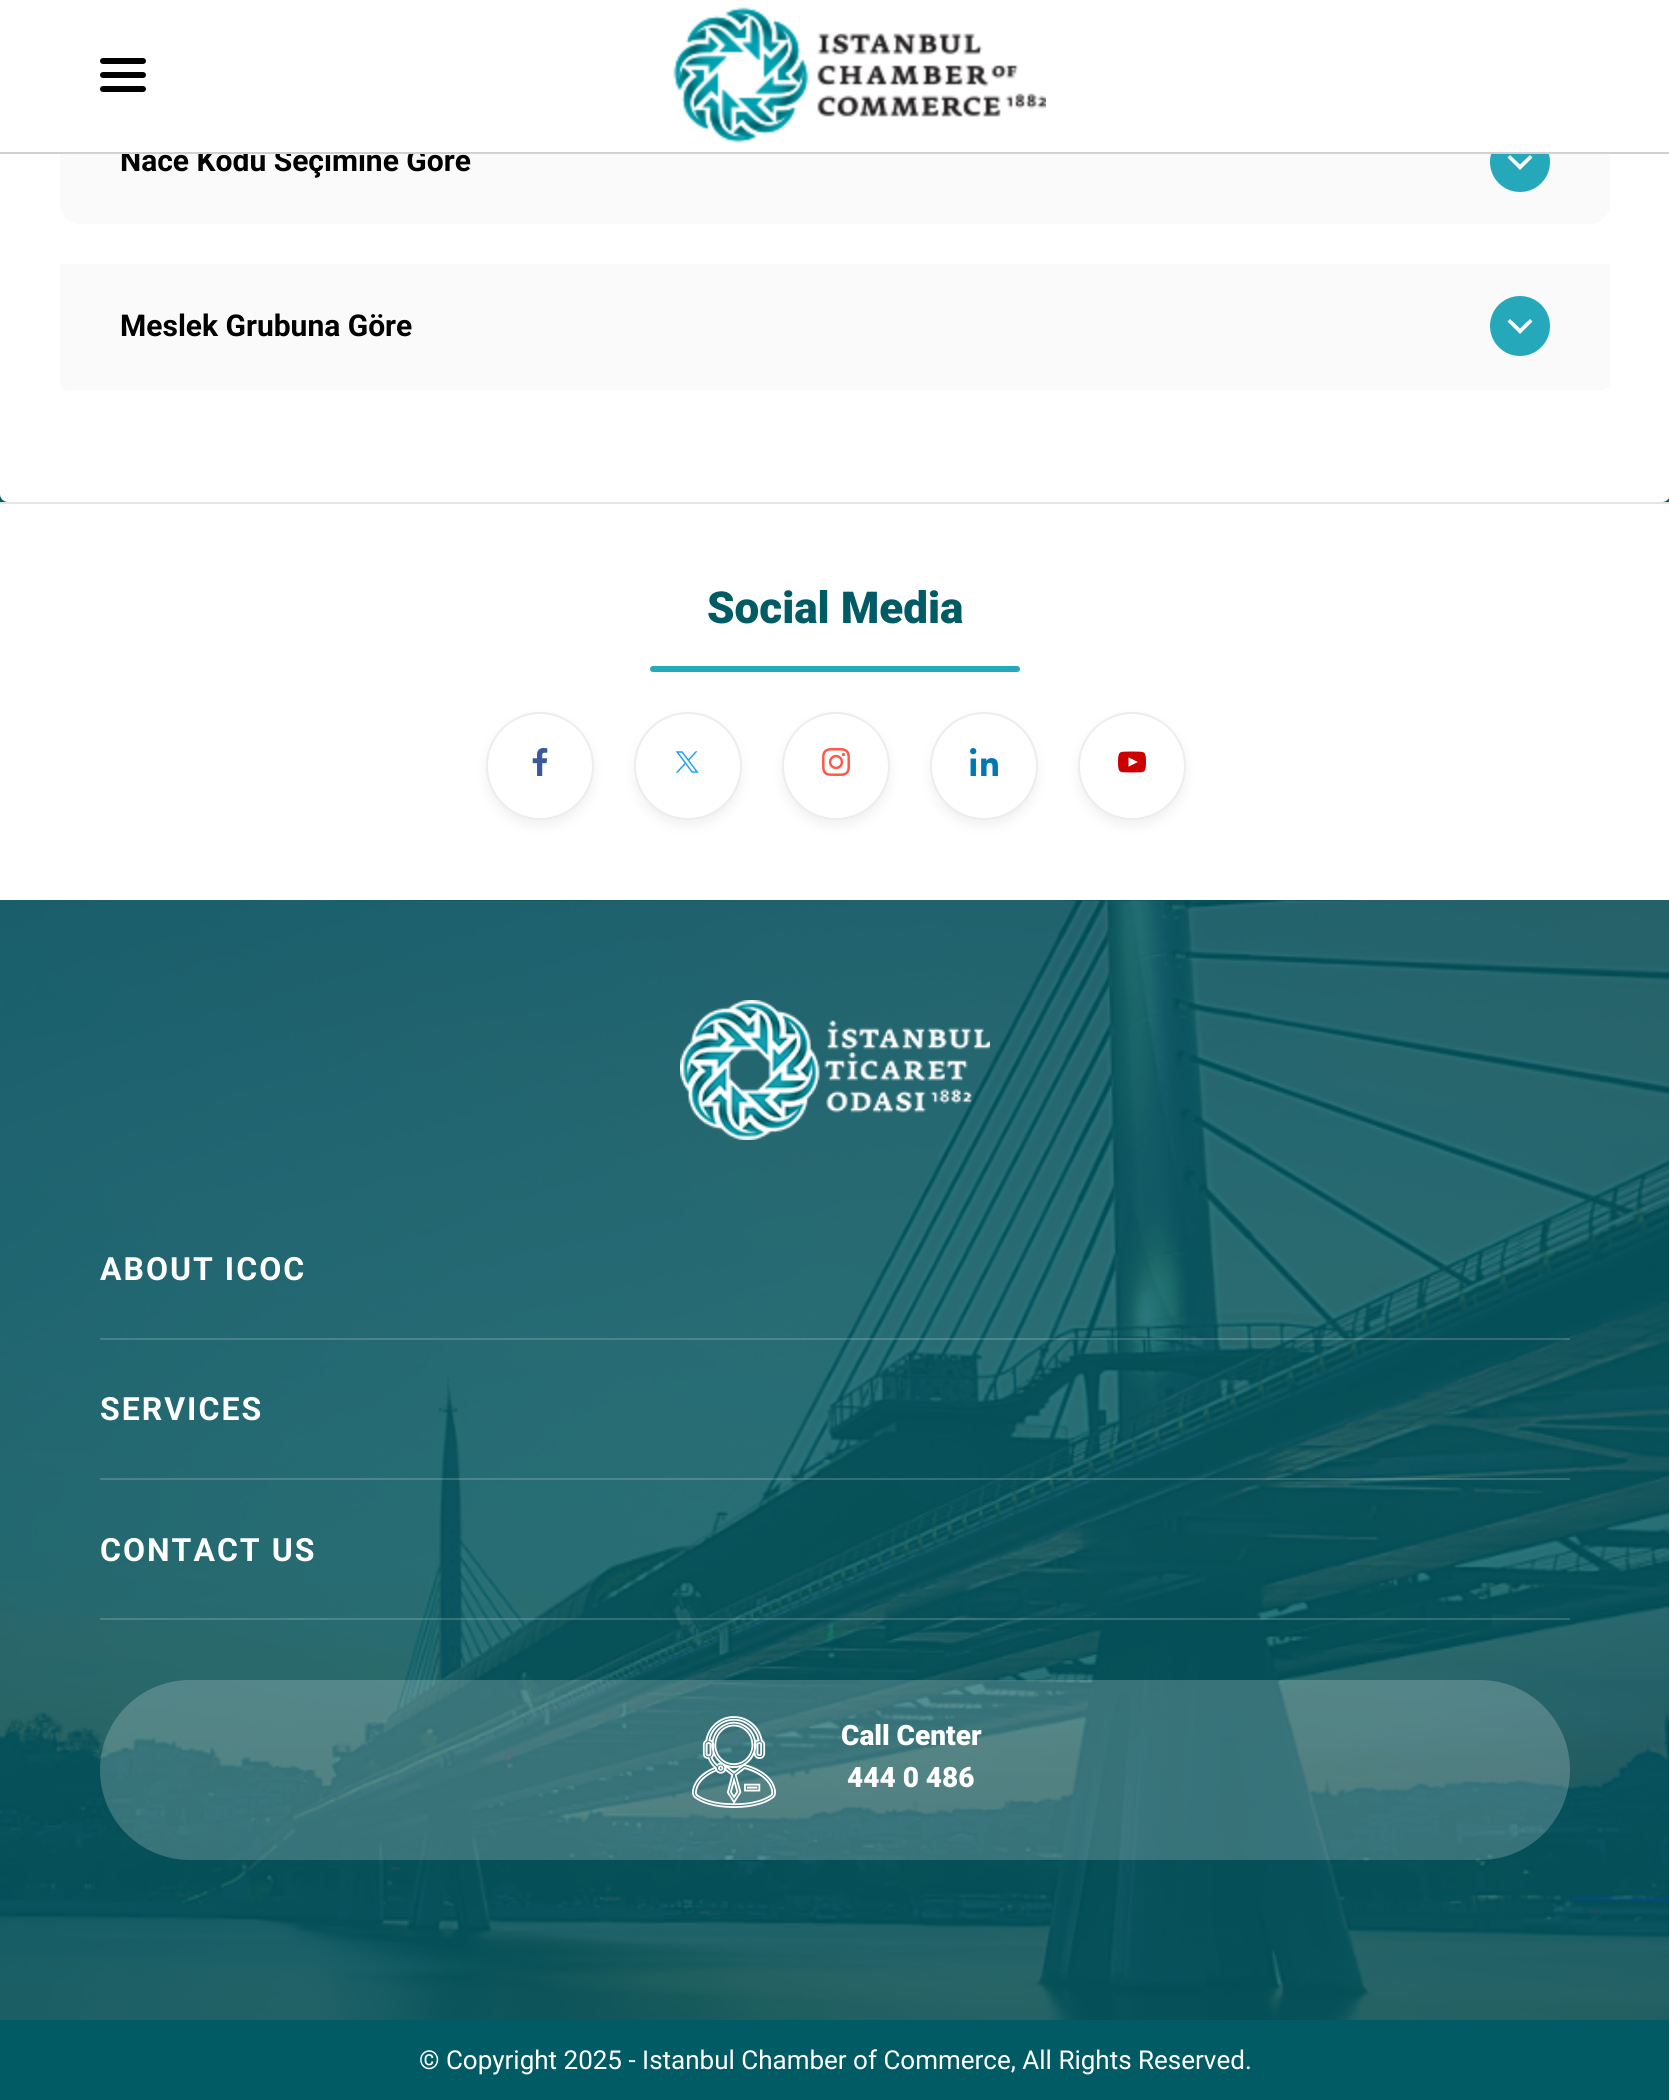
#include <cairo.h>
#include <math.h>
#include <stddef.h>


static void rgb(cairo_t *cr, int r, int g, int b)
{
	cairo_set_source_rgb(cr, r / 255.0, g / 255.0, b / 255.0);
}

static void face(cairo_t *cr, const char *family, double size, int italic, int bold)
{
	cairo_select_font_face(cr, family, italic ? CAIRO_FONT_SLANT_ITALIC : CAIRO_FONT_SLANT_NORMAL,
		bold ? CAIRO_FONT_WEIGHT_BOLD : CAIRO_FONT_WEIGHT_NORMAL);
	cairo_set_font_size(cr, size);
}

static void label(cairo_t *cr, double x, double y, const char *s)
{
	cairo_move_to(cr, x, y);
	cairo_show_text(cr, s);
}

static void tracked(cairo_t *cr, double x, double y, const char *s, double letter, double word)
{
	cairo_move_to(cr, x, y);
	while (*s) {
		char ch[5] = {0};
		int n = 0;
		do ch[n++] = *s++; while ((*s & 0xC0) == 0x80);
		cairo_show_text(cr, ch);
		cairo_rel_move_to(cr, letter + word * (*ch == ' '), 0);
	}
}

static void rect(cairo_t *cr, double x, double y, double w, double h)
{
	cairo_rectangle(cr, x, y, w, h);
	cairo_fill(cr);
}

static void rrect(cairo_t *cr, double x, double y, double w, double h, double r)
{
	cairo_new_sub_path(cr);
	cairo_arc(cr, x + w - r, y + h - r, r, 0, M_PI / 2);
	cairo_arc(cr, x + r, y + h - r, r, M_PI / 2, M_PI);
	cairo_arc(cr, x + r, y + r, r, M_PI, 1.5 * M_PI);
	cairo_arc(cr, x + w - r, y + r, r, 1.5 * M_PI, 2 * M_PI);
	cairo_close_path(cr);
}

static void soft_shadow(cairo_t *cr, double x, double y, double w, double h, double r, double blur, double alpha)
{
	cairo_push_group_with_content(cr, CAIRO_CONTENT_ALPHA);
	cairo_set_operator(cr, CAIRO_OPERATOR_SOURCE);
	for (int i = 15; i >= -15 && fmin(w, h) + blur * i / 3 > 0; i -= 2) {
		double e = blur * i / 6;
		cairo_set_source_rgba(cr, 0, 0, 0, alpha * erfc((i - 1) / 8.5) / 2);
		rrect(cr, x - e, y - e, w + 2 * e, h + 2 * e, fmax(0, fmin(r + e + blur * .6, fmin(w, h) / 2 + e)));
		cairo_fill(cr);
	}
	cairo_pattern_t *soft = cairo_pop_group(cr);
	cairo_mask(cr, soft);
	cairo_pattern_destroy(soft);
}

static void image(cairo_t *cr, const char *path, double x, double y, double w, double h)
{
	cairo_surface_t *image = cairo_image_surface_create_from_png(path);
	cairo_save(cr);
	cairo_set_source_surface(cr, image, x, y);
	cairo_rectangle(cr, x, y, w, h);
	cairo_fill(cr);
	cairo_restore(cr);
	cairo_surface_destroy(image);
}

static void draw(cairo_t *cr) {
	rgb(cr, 255, 255, 255);
	cairo_paint(cr);
	rgb(cr, 1, 91, 101);
	rect(cr, 0, 494, 1669, 8);
	rgb(cr, 255, 255, 255);
	cairo_new_path(cr);
	cairo_move_to(cr, 0, -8);
	cairo_line_to(cr, 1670, -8);
	cairo_line_to(cr, 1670, 494);
	cairo_curve_to(cr, 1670, 498.5, 1666.5, 502, 1662, 502);
	cairo_line_to(cr, 8, 502);
	cairo_curve_to(cr, 3.5, 502, 0, 498.5, 0, 494);
	cairo_close_path(cr);
	cairo_fill(cr);
	rgb(cr, 250, 250, 250);
	rrect(cr, 60, 100, 1550, 124, 20);
	cairo_fill(cr);
	face(cr, "Roboto", 30, 0, 1);
	rgb(cr, 0, 0, 0);
	label(cr, 120, 171, "Nace Kodu Seçimine Göre");
	rgb(cr, 37, 169, 186);
	cairo_new_path(cr);
	cairo_arc(cr, 1520, 162, 30, 0, 2 * M_PI);
	cairo_fill(cr);
	rgb(cr, 255, 255, 255);
	rect(cr, 60, 100, 1550, 52);
	rgb(cr, 0, 0, 0);
	rrect(cr, 100, 58, 46, 6, 3);
	cairo_fill(cr);
	rrect(cr, 100, 72, 46, 6, 3);
	cairo_fill(cr);
	rrect(cr, 100, 86, 46, 6, 3);
	cairo_fill(cr);
	image(cr, "image0.png", 673, 7, 373, 136);
	rgb(cr, 209, 209, 209);
	rect(cr, 0, 152, 1669, 2);
	rgb(cr, 255, 255, 255);
	cairo_new_path(cr);
	cairo_move_to(cr, 1530, 155);
	cairo_line_to(cr, 1520, 164.5);
	cairo_line_to(cr, 1510, 155);
	cairo_line_to(cr, 1507.5, 157.5);
	cairo_line_to(cr, 1520, 170);
	cairo_line_to(cr, 1532.5, 157.5);
	cairo_close_path(cr);
	cairo_fill(cr);
	rgb(cr, 250, 250, 250);
	cairo_new_path(cr);
	cairo_move_to(cr, 60, 264);
	cairo_line_to(cr, 1610, 264);
	cairo_line_to(cr, 1610, 382);
	cairo_curve_to(cr, 1610, 386.5, 1606.5, 390, 1602, 390);
	cairo_line_to(cr, 68, 390);
	cairo_curve_to(cr, 63.5, 390, 60, 386.5, 60, 382);
	cairo_close_path(cr);
	cairo_fill(cr);
	rgb(cr, 0, 0, 0);
	label(cr, 120, 336, "Meslek Grubuna Göre");
	rgb(cr, 37, 169, 186);
	cairo_new_path(cr);
	cairo_arc(cr, 1520, 326, 30, 0, 2 * M_PI);
	cairo_fill(cr);
	rgb(cr, 255, 255, 255);
	cairo_new_path(cr);
	cairo_move_to(cr, 1530, 319);
	cairo_line_to(cr, 1520, 328.5);
	cairo_line_to(cr, 1510, 319);
	cairo_line_to(cr, 1507.5, 321.5);
	cairo_line_to(cr, 1520, 334);
	cairo_line_to(cr, 1532.5, 321.5);
	cairo_close_path(cr);
	cairo_fill(cr);
	rgb(cr, 229, 229, 229);
	rect(cr, 0, 502, 1669, 2);
	face(cr, "Roboto Black", 44, 0, 0);
	rgb(cr, 1, 91, 101);
	label(cr, 707, 623, "Social Media");
	rgb(cr, 37, 169, 186);
	rrect(cr, 650, 666, 370, 6, 3);
	cairo_fill(cr);
	rgb(cr, 0, 0, 0);
	soft_shadow(cr, 486, 718, 108, 108, 54, 6, 0.06);
	rgb(cr, 255, 255, 255);
	cairo_arc(cr, 540, 766, 53, 0, 2 * M_PI);
	cairo_fill_preserve(cr);
	rgb(cr, 237, 237, 237);
	cairo_stroke(cr);
	image(cr, "image1.png", 532, 748, 16, 28);
	rgb(cr, 0, 0, 0);
	soft_shadow(cr, 634, 718, 108, 108, 54, 6, 0.06);
	rgb(cr, 255, 255, 255);
	cairo_arc(cr, 688, 766, 53, 0, 2 * M_PI);
	cairo_fill_preserve(cr);
	rgb(cr, 237, 237, 237);
	cairo_stroke(cr);
	image(cr, "image2.png", 675, 751, 24, 22);
	rgb(cr, 0, 0, 0);
	soft_shadow(cr, 782, 718, 108, 108, 54, 6, 0.06);
	rgb(cr, 255, 255, 255);
	cairo_arc(cr, 836, 766, 53, 0, 2 * M_PI);
	cairo_fill_preserve(cr);
	rgb(cr, 237, 237, 237);
	cairo_stroke(cr);
	image(cr, "image3.png", 822, 748, 28, 28);
	rgb(cr, 0, 0, 0);
	soft_shadow(cr, 930, 718, 108, 108, 54, 6, 0.06);
	rgb(cr, 255, 255, 255);
	cairo_arc(cr, 984, 766, 53, 0, 2 * M_PI);
	cairo_fill_preserve(cr);
	rgb(cr, 237, 237, 237);
	cairo_stroke(cr);
	image(cr, "image4.png", 970, 748, 28, 28);
	rgb(cr, 0, 0, 0);
	soft_shadow(cr, 1078, 718, 108, 108, 54, 6, 0.06);
	rgb(cr, 255, 255, 255);
	cairo_arc(cr, 1132, 766, 53, 0, 2 * M_PI);
	cairo_fill_preserve(cr);
	rgb(cr, 237, 237, 237);
	cairo_stroke(cr);
	image(cr, "image5.png", 1118, 751, 28, 22);
	rgb(cr, 1, 91, 101);
	rect(cr, 0, 2020, 1669, 80);
	image(cr, "image6.png", 0, 900, 1669, 1120);
	image(cr, "image7.png", 680, 1000, 310, 140);
	cairo_set_source_rgba(cr, 0.906, 0.914, 0.918, 0.2);
	rect(cr, 100, 1338, 1470, 2);
	face(cr, "Roboto", 32, 0, 1);
	rgb(cr, 255, 255, 255);
	tracked(cr, 100, 1280, "ABOUT ICOC", 2, 0);
	cairo_set_source_rgba(cr, 0.906, 0.914, 0.918, 0.2);
	rect(cr, 100, 1478, 1470, 2);
	rgb(cr, 255, 255, 255);
	tracked(cr, 100, 1420, "SERVICES", 2, 0);
	cairo_set_source_rgba(cr, 0.906, 0.914, 0.918, 0.2);
	rect(cr, 100, 1618, 1470, 2);
	rgb(cr, 255, 255, 255);
	tracked(cr, 100, 1561, "CONTACT US", 2, 0);
	cairo_set_source_rgba(cr, 1, 1, 1, 0.2);
	rrect(cr, 100, 1680, 1470, 180, 90);
	cairo_fill(cr);
	image(cr, "image8.png", 691, 1716, 86, 92);
	face(cr, "Roboto Black", 28, 0, 0);
	rgb(cr, 255, 255, 255);
	label(cr, 841, 1745, "Call Center");
	label(cr, 847, 1787, "444 0 486");
	face(cr, "Roboto", 26, 0, 0);
	label(cr, 419, 2069, "© Copyright 2025 - Istanbul Chamber of Commerce, All Rights Reserved.");
}

int main(void) {
	cairo_surface_t *surface = cairo_image_surface_create(CAIRO_FORMAT_RGB24, 1669, 2100);
	cairo_t *cr = cairo_create(surface);
	cairo_font_options_t *options = cairo_font_options_create();
	cairo_font_options_set_hint_metrics(options, CAIRO_HINT_METRICS_OFF);
	cairo_font_options_set_hint_style(options, CAIRO_HINT_STYLE_NONE);
	cairo_set_font_options(cr, options);
	cairo_set_miter_limit(cr, 4);
	draw(cr);
	cairo_surface_write_to_png(surface, "render.png");
	cairo_font_options_destroy(options);
	cairo_destroy(cr);
	cairo_surface_destroy(surface);
	return 0;
}
